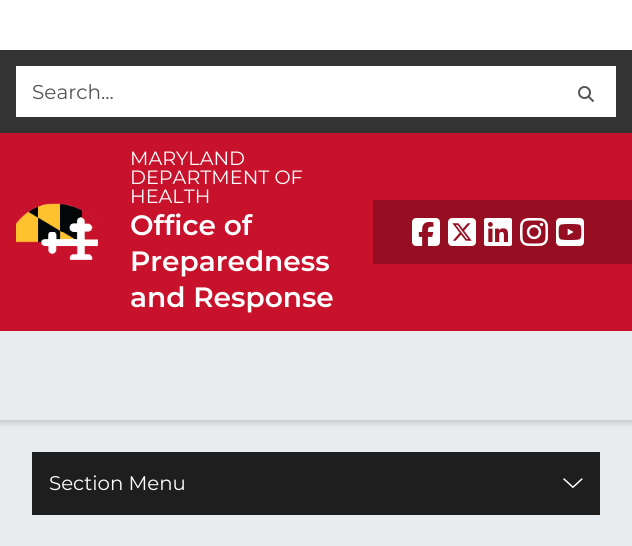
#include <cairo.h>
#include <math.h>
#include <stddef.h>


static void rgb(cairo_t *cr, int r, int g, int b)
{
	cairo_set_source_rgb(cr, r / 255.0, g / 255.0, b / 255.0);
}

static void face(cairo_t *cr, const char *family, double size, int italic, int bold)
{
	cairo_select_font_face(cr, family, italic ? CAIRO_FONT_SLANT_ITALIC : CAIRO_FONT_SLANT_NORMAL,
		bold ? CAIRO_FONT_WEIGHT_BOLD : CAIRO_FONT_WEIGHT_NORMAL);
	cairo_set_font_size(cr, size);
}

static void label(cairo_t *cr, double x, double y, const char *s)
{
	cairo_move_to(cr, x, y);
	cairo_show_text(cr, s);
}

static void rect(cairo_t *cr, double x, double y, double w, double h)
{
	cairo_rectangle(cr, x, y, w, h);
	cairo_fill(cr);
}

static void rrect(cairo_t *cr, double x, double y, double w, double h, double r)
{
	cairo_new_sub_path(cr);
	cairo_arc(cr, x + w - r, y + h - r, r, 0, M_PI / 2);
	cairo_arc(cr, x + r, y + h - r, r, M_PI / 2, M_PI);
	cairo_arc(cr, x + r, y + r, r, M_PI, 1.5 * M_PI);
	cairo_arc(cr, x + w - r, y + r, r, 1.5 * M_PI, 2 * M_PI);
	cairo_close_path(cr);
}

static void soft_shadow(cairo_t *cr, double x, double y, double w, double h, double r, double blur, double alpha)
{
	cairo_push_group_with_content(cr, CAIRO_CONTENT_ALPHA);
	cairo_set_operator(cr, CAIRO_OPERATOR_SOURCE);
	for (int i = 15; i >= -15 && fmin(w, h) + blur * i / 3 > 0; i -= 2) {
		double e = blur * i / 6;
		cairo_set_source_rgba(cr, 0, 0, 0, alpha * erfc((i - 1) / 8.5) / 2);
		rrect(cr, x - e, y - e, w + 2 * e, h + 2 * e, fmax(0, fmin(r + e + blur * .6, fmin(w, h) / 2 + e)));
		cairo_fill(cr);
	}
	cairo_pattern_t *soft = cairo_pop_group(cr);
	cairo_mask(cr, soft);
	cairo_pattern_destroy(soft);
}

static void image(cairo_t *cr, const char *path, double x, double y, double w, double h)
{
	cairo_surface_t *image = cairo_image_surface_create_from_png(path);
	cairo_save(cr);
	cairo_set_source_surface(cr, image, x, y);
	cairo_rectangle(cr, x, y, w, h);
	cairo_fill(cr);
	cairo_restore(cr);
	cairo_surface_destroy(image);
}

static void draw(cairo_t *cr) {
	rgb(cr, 255, 255, 255);
	cairo_paint(cr);
	rgb(cr, 51, 51, 51);
	rect(cr, 0, 50, 632, 83);
	rgb(cr, 255, 255, 255);
	rect(cr, 16, 66, 600, 51);
	face(cr, "Montserrat Thin", 20, 0, 0);
	rgb(cr, 84, 84, 84);
	label(cr, 32, 99, "Search...");
	image(cr, "image0.png", 578, 86, 16, 16);
	rgb(cr, 200, 18, 44);
	rect(cr, 0, 133, 632, 198);
	image(cr, "image1.png", 16, 203, 82, 57);
	face(cr, "Montserrat Thin", 19.25, 0, 0);
	rgb(cr, 255, 255, 255);
	label(cr, 130, 165, "MARYLAND");
	label(cr, 130, 184, "DEPARTMENT OF");
	label(cr, 130, 203, "HEALTH");
	face(cr, "Montserrat SemiBold", 28, 0, 0);
	label(cr, 130, 235, "Office of");
	label(cr, 130, 271, "Preparedness");
	label(cr, 130, 307, "and Response");
	rgb(cr, 150, 14, 33);
	rect(cr, 373, 200, 259, 64);
	image(cr, "image2.png", 412, 218, 28, 28);
	image(cr, "image3.png", 448, 218, 28, 28);
	image(cr, "image4.png", 484, 218, 28, 28);
	image(cr, "image5.png", 520, 218, 28, 28);
	image(cr, "image6.png", 556, 218, 28, 28);
	rgb(cr, 233, 236, 239);
	rect(cr, 0, 420, 632, 126);
	rgb(cr, 0, 0, 0);
	soft_shadow(cr, 0, 334, 632, 89, 0, 3, 0.16);
	rgb(cr, 233, 236, 239);
	rect(cr, 0, 331, 632, 89);
	rgb(cr, 30, 30, 30);
	rect(cr, 32, 452, 568, 63);
	face(cr, "Montserrat Thin", 19.75, 0, 0);
	rgb(cr, 255, 255, 255);
	label(cr, 49, 490, "Section Menu");
	image(cr, "image7.png", 563, 478, 20, 11);
}

int main(void) {
	cairo_surface_t *surface = cairo_image_surface_create(CAIRO_FORMAT_RGB24, 632, 546);
	cairo_t *cr = cairo_create(surface);
	cairo_font_options_t *options = cairo_font_options_create();
	cairo_font_options_set_hint_metrics(options, CAIRO_HINT_METRICS_OFF);
	cairo_font_options_set_hint_style(options, CAIRO_HINT_STYLE_NONE);
	cairo_set_font_options(cr, options);
	cairo_set_miter_limit(cr, 4);
	draw(cr);
	cairo_surface_write_to_png(surface, "render.png");
	cairo_font_options_destroy(options);
	cairo_destroy(cr);
	cairo_surface_destroy(surface);
	return 0;
}
